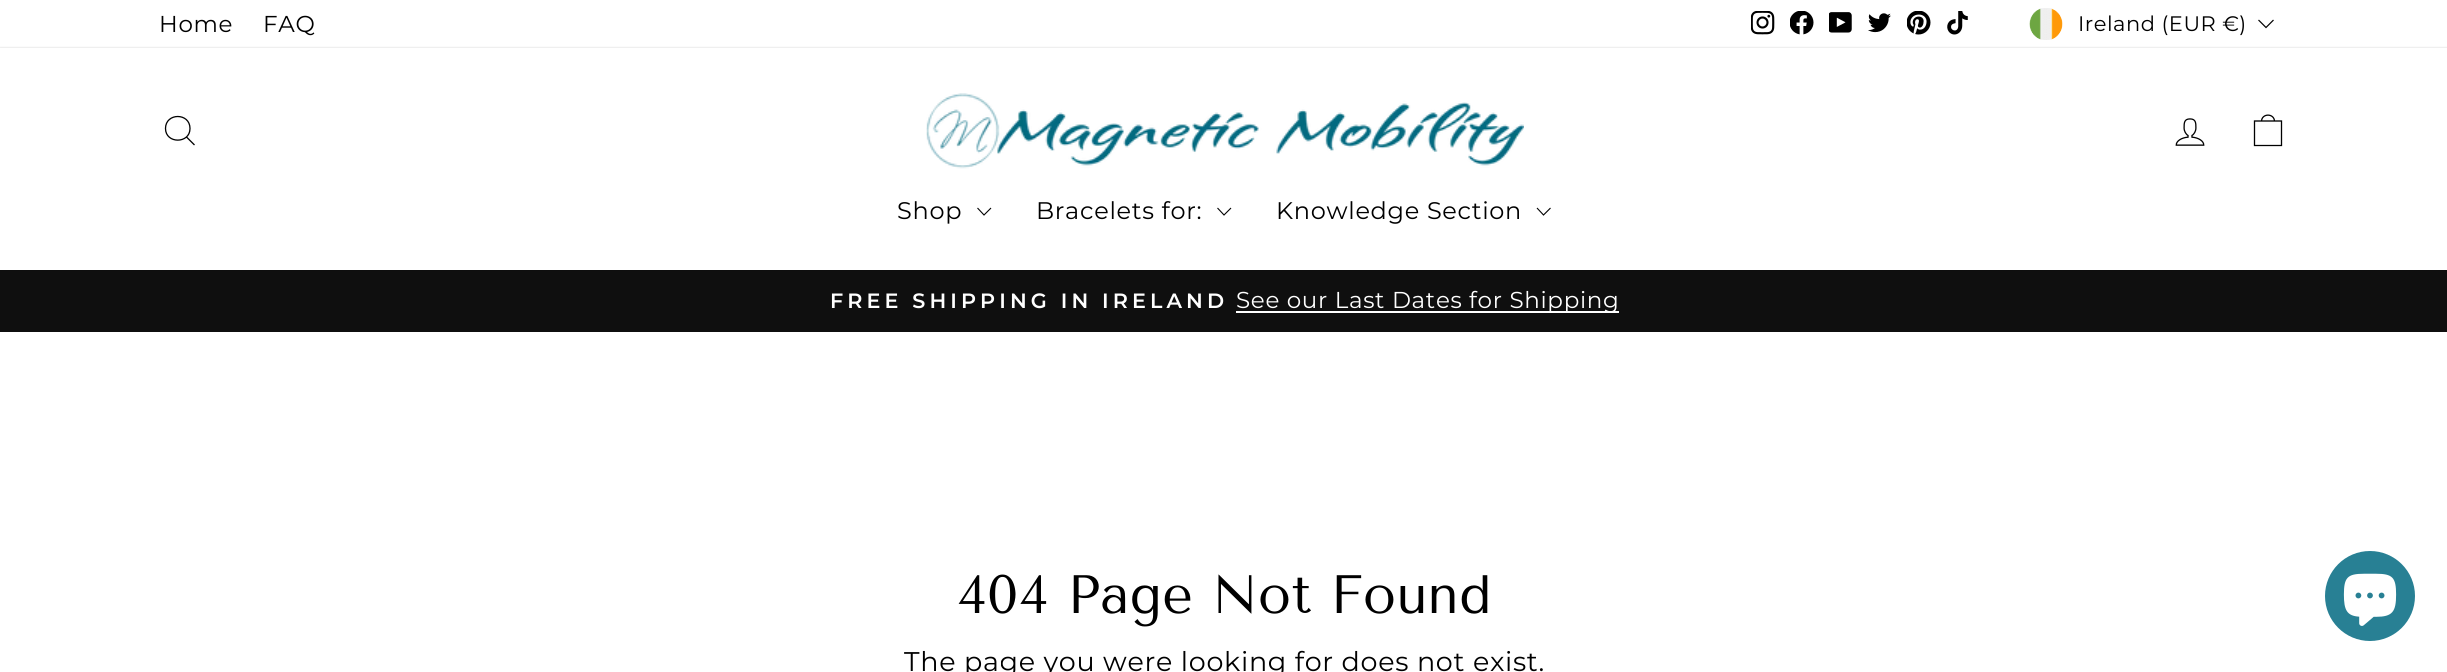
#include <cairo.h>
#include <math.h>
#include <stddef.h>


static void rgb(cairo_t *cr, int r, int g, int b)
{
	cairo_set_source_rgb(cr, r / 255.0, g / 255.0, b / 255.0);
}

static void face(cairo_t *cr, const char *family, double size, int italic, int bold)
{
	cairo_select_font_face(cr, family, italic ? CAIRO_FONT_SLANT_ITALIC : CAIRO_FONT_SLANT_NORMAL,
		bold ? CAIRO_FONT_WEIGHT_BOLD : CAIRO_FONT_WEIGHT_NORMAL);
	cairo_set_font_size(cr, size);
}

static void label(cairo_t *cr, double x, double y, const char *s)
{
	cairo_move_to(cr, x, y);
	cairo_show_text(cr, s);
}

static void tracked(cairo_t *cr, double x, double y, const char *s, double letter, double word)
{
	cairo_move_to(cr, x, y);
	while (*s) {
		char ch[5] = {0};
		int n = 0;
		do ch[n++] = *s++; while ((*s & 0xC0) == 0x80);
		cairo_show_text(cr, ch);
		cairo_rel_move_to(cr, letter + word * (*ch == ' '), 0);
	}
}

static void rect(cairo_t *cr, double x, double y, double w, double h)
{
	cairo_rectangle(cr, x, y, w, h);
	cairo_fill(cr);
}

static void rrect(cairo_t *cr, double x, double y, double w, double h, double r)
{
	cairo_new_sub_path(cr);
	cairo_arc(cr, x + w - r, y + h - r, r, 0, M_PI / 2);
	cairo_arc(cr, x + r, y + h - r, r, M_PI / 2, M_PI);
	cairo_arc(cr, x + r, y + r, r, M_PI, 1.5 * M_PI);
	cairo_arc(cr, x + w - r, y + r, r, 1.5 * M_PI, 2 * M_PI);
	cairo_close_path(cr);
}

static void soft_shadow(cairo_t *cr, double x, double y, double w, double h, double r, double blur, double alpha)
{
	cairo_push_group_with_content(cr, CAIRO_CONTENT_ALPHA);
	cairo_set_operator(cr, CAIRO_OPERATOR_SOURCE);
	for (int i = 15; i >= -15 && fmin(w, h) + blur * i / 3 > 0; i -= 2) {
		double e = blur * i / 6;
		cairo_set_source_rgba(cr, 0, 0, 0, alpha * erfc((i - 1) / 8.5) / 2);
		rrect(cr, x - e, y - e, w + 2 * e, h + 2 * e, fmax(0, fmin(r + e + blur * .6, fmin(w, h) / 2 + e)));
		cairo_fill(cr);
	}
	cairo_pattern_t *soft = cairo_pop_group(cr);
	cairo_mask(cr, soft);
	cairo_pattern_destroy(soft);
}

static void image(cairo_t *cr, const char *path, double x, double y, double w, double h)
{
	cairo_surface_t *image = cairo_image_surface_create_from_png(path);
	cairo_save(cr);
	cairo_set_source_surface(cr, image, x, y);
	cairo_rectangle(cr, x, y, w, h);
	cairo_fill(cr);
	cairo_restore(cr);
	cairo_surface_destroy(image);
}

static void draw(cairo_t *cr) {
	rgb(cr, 255, 255, 255);
	cairo_paint(cr);
	face(cr, "Montserrat Thin", 23, 0, 0);
	rgb(cr, 0, 0, 0);
	tracked(cr, 159, 32, "Home", 0.7, 0);
	tracked(cr, 263, 32, "FAQ", 0.7, 0);
	image(cr, "image0.png", 1751, 11, 24, 24);
	image(cr, "image1.png", 1790, 11, 24, 24);
	image(cr, "image2.png", 1829, 12, 23, 21);
	image(cr, "image3.png", 1868, 13, 23, 20);
	image(cr, "image4.png", 1907, 11, 24, 24);
	image(cr, "image5.png", 1947, 11, 21, 24);
	image(cr, "image6.png", 2029, 8, 34, 32);
	face(cr, "Montserrat Thin", 21, 0, 0);
	tracked(cr, 2078, 31, "Ireland (EUR €)", 0.5, 0);
	cairo_new_path(cr);
	cairo_move_to(cr, 2258.5, 20);
	cairo_line_to(cr, 2266, 27.5);
	cairo_line_to(cr, 2273.5, 20);
	cairo_set_line_width(cr, 1.2);
	cairo_stroke(cr);
	rgb(cr, 15, 15, 15);
	rect(cr, 0, 270, 2447, 62);
	cairo_save(cr);
	cairo_set_fill_rule(cr, CAIRO_FILL_RULE_EVEN_ODD);
	cairo_new_path(cr);
	cairo_move_to(cr, 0, 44);
	cairo_line_to(cr, 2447, 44);
	cairo_line_to(cr, 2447, 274);
	cairo_line_to(cr, 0, 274);
	cairo_close_path(cr);
	cairo_move_to(cr, 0, 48);
	cairo_line_to(cr, 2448, 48);
	cairo_line_to(cr, 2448, 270);
	cairo_line_to(cr, 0, 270);
	cairo_close_path(cr);
	cairo_clip(cr);
	rgb(cr, 0, 0, 0);
	soft_shadow(cr, 0, 48, 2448, 222, 0, 1, 0.2);
	cairo_restore(cr);
	cairo_new_path(cr);
	cairo_move_to(cr, 190, 128.5);
	cairo_curve_to(cr, 190, 144, 165.5, 144, 165.5, 128.5);
	cairo_curve_to(cr, 165.5, 112.5, 190, 112.5, 190, 128.5);
	cairo_close_path(cr);
	cairo_move_to(cr, 194.5, 145);
	cairo_line_to(cr, 186.5, 137);
	rgb(cr, 0, 0, 0);
	cairo_set_line_width(cr, 1.3);
	cairo_stroke(cr);
	image(cr, "image7.png", 926, 93, 598, 76);
	image(cr, "image8.png", 2175, 118, 30, 28);
	cairo_new_path(cr);
	cairo_move_to(cr, 2254.5, 121);
	cairo_line_to(cr, 2281.5, 121);
	cairo_line_to(cr, 2281.5, 145.5);
	cairo_line_to(cr, 2254.5, 145.5);
	cairo_close_path(cr);
	cairo_move_to(cr, 2261.5, 121.5);
	cairo_curve_to(cr, 2261.5, 113, 2274.5, 113, 2274.5, 121.5);
	cairo_stroke(cr);
	face(cr, "Montserrat Thin", 24, 0, 0);
	tracked(cr, 897, 219, "Shop", 0.7, 0);
	cairo_new_path(cr);
	cairo_move_to(cr, 977.5, 208);
	cairo_line_to(cr, 984, 215);
	cairo_line_to(cr, 991, 208);
	cairo_set_line_width(cr, 1.1);
	cairo_stroke(cr);
	tracked(cr, 1036, 219, "Bracelets for:", 0.7, 0);
	cairo_new_path(cr);
	cairo_move_to(cr, 1217.5, 208);
	cairo_line_to(cr, 1224, 215);
	cairo_line_to(cr, 1231, 208);
	cairo_stroke(cr);
	tracked(cr, 1276, 219, "Knowledge Section", 0.7, 0);
	cairo_new_path(cr);
	cairo_move_to(cr, 1537, 208);
	cairo_line_to(cr, 1543.5, 215);
	cairo_line_to(cr, 1550.5, 208);
	cairo_stroke(cr);
	face(cr, "Montserrat SemiBold", 20.7, 0, 0);
	rgb(cr, 255, 255, 255);
	tracked(cr, 830, 308, "FREE SHIPPING IN IRELAND", 4.1, 0);
	rect(cr, 1236, 311, 383, 2);
	face(cr, "Montserrat Thin", 23, 0, 0);
	tracked(cr, 1236, 308, "See our Last Dates for Shipping", 0.7, 0);
	face(cr, "Tenor Sans", 54, 0, 0);
	rgb(cr, 0, 0, 0);
	label(cr, 957, 613, "404 Page Not Found");
	face(cr, "Montserrat Thin", 27, 0, 0);
	tracked(cr, 904, 671, "The page you were looking for does not exist.", 0.7, 0);
	rgb(cr, 40, 128, 148);
	cairo_new_path(cr);
	cairo_arc(cr, 2370, 596, 45, 0, 2 * M_PI);
	cairo_fill(cr);
	image(cr, "image9.png", 2343, 573, 54, 53);
}

int main(void) {
	cairo_surface_t *surface = cairo_image_surface_create(CAIRO_FORMAT_RGB24, 2447, 672);
	cairo_t *cr = cairo_create(surface);
	cairo_font_options_t *options = cairo_font_options_create();
	cairo_font_options_set_hint_metrics(options, CAIRO_HINT_METRICS_OFF);
	cairo_font_options_set_hint_style(options, CAIRO_HINT_STYLE_NONE);
	cairo_set_font_options(cr, options);
	cairo_set_miter_limit(cr, 4);
	draw(cr);
	cairo_surface_write_to_png(surface, "render.png");
	cairo_font_options_destroy(options);
	cairo_destroy(cr);
	cairo_surface_destroy(surface);
	return 0;
}
